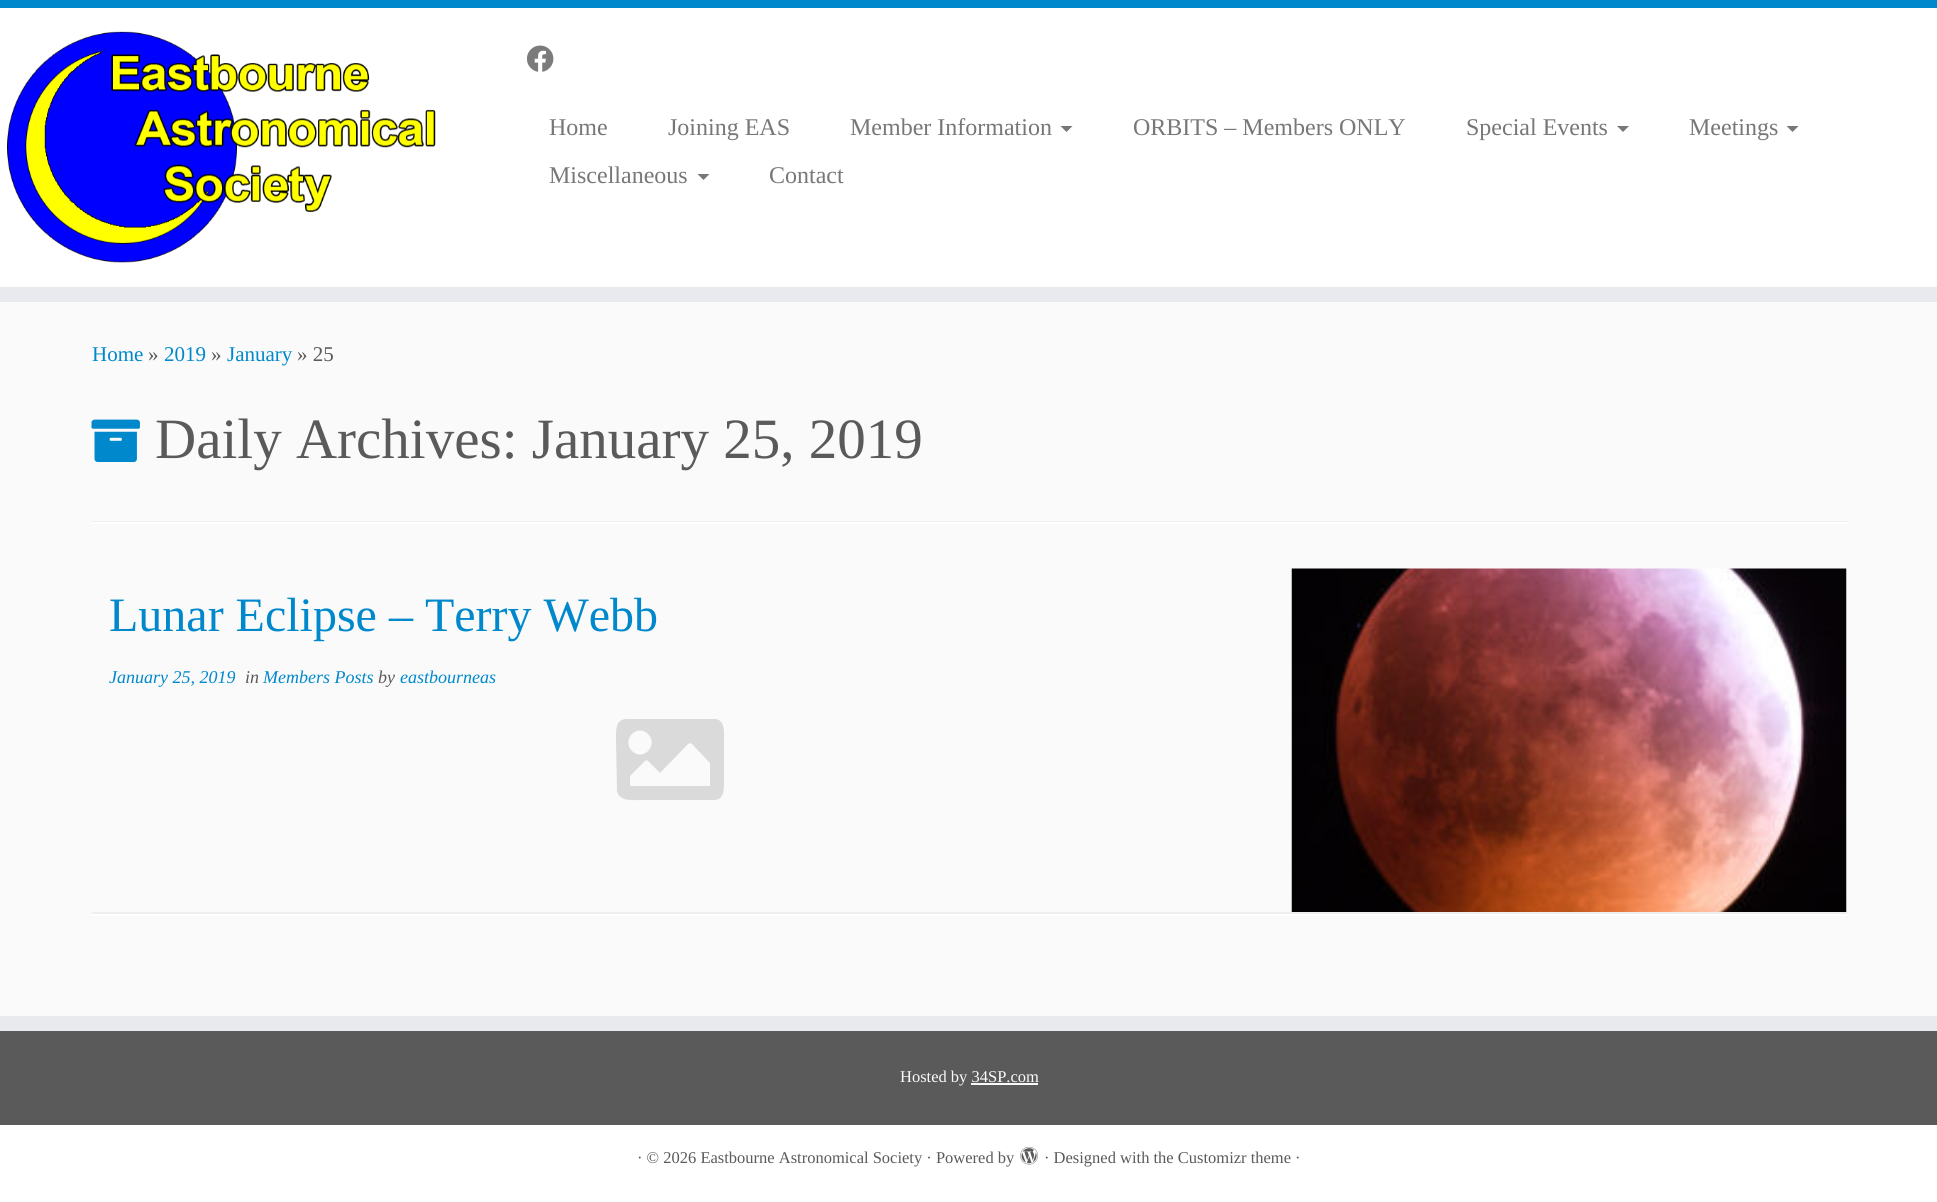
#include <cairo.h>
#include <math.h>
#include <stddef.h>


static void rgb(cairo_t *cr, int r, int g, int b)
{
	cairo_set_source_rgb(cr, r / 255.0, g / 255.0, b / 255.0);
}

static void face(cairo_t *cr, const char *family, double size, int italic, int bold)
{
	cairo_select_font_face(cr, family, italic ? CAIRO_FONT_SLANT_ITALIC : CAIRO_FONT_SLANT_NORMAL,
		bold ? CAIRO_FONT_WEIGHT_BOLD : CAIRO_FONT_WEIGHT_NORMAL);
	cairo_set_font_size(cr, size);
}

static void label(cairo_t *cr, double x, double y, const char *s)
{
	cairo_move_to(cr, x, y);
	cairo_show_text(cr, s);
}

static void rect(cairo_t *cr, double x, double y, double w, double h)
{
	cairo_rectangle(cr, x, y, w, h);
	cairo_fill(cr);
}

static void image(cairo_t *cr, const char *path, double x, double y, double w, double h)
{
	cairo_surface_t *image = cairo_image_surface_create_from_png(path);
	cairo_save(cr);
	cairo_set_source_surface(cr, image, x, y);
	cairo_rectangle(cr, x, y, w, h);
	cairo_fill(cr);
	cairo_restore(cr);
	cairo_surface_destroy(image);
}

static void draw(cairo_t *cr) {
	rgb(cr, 250, 250, 250);
	cairo_paint(cr);
	rgb(cr, 255, 255, 255);
	rect(cr, 0, 8, 1937, 279);
	rgb(cr, 0, 136, 204);
	rect(cr, 0, 0, 1937, 8);
	rgb(cr, 233, 234, 238);
	rect(cr, 0, 287, 1937, 15);
	image(cr, "image0.png", 7, 31, 429, 232);
	image(cr, "image1.png", 526, 45, 28, 27);
	face(cr, "Liberation Serif", 24, 0, 0);
	rgb(cr, 119, 119, 119);
	label(cr, 549, 135, "Home");
	label(cr, 668, 135, "Joining EAS");
	label(cr, 850, 135, "Member Information");
	cairo_new_path(cr);
	cairo_move_to(cr, 1060.5, 126);
	cairo_line_to(cr, 1072.5, 126);
	cairo_line_to(cr, 1066.5, 132);
	cairo_close_path(cr);
	cairo_fill(cr);
	label(cr, 1133, 135, "ORBITS – Members ONLY");
	label(cr, 1466, 135, "Special Events");
	cairo_new_path(cr);
	cairo_move_to(cr, 1617, 126);
	cairo_line_to(cr, 1629, 126);
	cairo_line_to(cr, 1623, 132);
	cairo_close_path(cr);
	cairo_fill(cr);
	label(cr, 1689, 135, "Meetings");
	cairo_new_path(cr);
	cairo_move_to(cr, 1786.5, 126);
	cairo_line_to(cr, 1798.5, 126);
	cairo_line_to(cr, 1792.5, 132);
	cairo_close_path(cr);
	cairo_fill(cr);
	label(cr, 549, 183, "Miscellaneous");
	cairo_new_path(cr);
	cairo_move_to(cr, 697.5, 174);
	cairo_line_to(cr, 709.5, 174);
	cairo_line_to(cr, 703.5, 180);
	cairo_close_path(cr);
	cairo_fill(cr);
	label(cr, 769, 183, "Contact");
	face(cr, "Liberation Serif", 21, 0, 0);
	rgb(cr, 0, 136, 204);
	label(cr, 92, 361, "Home");
	rgb(cr, 90, 90, 90);
	label(cr, 148, 361, "»");
	rgb(cr, 0, 136, 204);
	label(cr, 164, 361, "2019");
	rgb(cr, 90, 90, 90);
	label(cr, 211, 361, "»");
	rgb(cr, 0, 136, 204);
	label(cr, 227, 361, "January");
	rgb(cr, 90, 90, 90);
	label(cr, 297, 361, "» 25");
	image(cr, "image2.png", 91, 419, 49, 43);
	face(cr, "Liberation Serif", 57, 0, 0);
	label(cr, 155, 458, "Daily Archives: January 25, 2019");
	rgb(cr, 238, 238, 238);
	rect(cr, 92, 521, 1755, 1);
	rgb(cr, 255, 255, 255);
	rect(cr, 92, 522, 1755, 2);
	face(cr, "Liberation Serif", 48, 0, 0);
	rgb(cr, 0, 136, 204);
	label(cr, 109, 631, "Lunar Eclipse – Terry Webb");
	face(cr, "Liberation Serif", 18, 1, 0);
	label(cr, 109, 683, "January 25, 2019");
	rgb(cr, 90, 90, 90);
	label(cr, 245, 683, "in");
	rgb(cr, 0, 136, 204);
	label(cr, 263, 683, "Members Posts");
	rgb(cr, 90, 90, 90);
	label(cr, 378, 683, "by");
	rgb(cr, 0, 136, 204);
	label(cr, 400, 683, "eastbourneas");
	rgb(cr, 218, 218, 218);
	cairo_new_path(cr);
	cairo_move_to(cr, 714, 800);
	cairo_line_to(cr, 641, 800);
	cairo_curve_to(cr, 634, 800, 619, 802, 617, 791);
	cairo_line_to(cr, 616, 739);
	cairo_curve_to(cr, 616, 731, 615, 719, 627, 719);
	cairo_line_to(cr, 716, 719);
	cairo_curve_to(cr, 725, 721, 724, 732, 724, 739);
	cairo_line_to(cr, 724, 779);
	cairo_curve_to(cr, 724, 787, 725, 800, 714, 800);
	cairo_close_path(cr);
	cairo_move_to(cr, 648, 734);
	cairo_curve_to(cr, 637, 723, 621, 740, 632, 751);
	cairo_curve_to(cr, 643, 762, 659, 745, 648, 734);
	cairo_close_path(cr);
	cairo_move_to(cr, 630, 786);
	cairo_line_to(cr, 710, 786);
	cairo_line_to(cr, 710, 763);
	cairo_line_to(cr, 692, 744);
	cairo_curve_to(cr, 691, 743, 690, 743, 688, 744);
	cairo_line_to(cr, 660, 773);
	cairo_line_to(cr, 648, 761);
	cairo_curve_to(cr, 647, 760, 646, 760, 645, 761);
	cairo_line_to(cr, 630, 776);
	cairo_close_path(cr);
	cairo_fill(cr);
	image(cr, "image3.png", 1291, 568, 556, 344);
	rgb(cr, 238, 238, 238);
	rect(cr, 92, 912, 1755, 2);
	rgb(cr, 255, 255, 255);
	rect(cr, 92, 914, 1755, 2);
	rgb(cr, 90, 90, 90);
	rect(cr, 0, 1031, 1937, 94);
	rgb(cr, 233, 234, 238);
	rect(cr, 0, 1016, 1937, 15);
	face(cr, "Liberation Serif", 16.5, 0, 0);
	rgb(cr, 250, 250, 250);
	label(cr, 900, 1082, "Hosted by 34SP.com");
	rect(cr, 971, 1083, 67, 2);
	rgb(cr, 255, 255, 255);
	rect(cr, 0, 1125, 1937, 77);
	rgb(cr, 90, 90, 90);
	label(cr, 637, 1163, "· © 2026 Eastbourne Astronomical Society · Powered by");
	image(cr, "image4.png", 1020, 1146, 18, 19);
	label(cr, 1044, 1163, "· Designed with the Customizr theme ·");
}

int main(void) {
	cairo_surface_t *surface = cairo_image_surface_create(CAIRO_FORMAT_RGB24, 1937, 1202);
	cairo_t *cr = cairo_create(surface);
	cairo_font_options_t *options = cairo_font_options_create();
	cairo_font_options_set_hint_metrics(options, CAIRO_HINT_METRICS_OFF);
	cairo_font_options_set_hint_style(options, CAIRO_HINT_STYLE_NONE);
	cairo_set_font_options(cr, options);
	cairo_set_miter_limit(cr, 4);
	draw(cr);
	cairo_surface_write_to_png(surface, "render.png");
	cairo_font_options_destroy(options);
	cairo_destroy(cr);
	cairo_surface_destroy(surface);
	return 0;
}
